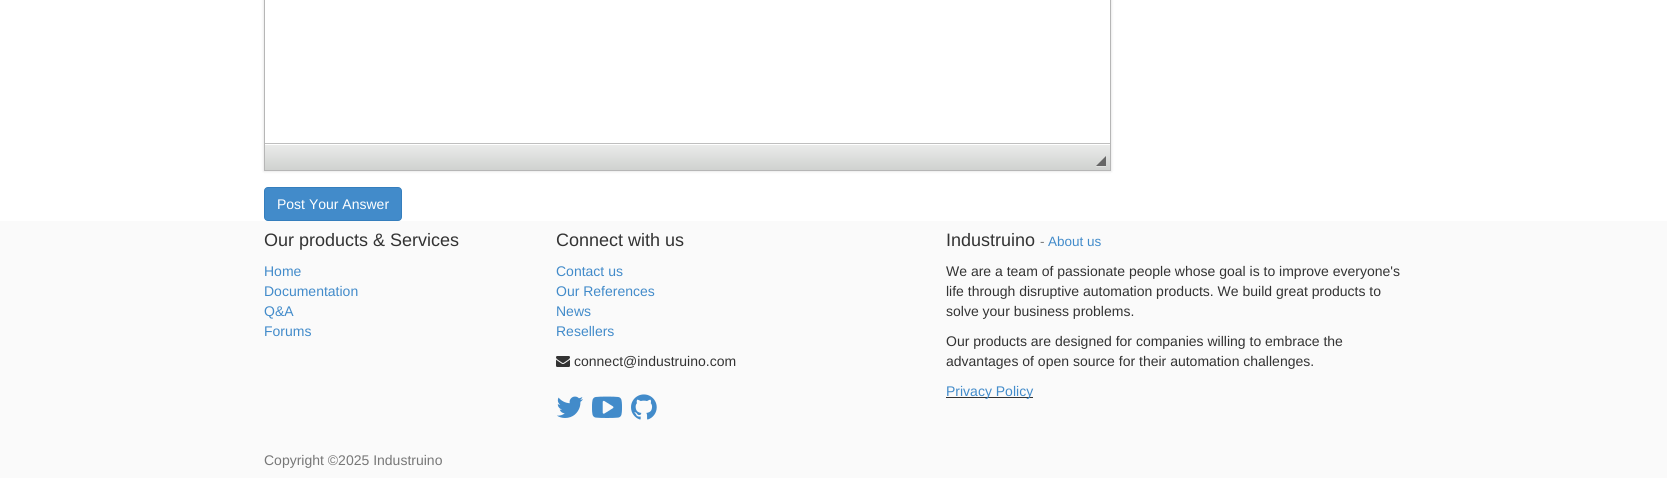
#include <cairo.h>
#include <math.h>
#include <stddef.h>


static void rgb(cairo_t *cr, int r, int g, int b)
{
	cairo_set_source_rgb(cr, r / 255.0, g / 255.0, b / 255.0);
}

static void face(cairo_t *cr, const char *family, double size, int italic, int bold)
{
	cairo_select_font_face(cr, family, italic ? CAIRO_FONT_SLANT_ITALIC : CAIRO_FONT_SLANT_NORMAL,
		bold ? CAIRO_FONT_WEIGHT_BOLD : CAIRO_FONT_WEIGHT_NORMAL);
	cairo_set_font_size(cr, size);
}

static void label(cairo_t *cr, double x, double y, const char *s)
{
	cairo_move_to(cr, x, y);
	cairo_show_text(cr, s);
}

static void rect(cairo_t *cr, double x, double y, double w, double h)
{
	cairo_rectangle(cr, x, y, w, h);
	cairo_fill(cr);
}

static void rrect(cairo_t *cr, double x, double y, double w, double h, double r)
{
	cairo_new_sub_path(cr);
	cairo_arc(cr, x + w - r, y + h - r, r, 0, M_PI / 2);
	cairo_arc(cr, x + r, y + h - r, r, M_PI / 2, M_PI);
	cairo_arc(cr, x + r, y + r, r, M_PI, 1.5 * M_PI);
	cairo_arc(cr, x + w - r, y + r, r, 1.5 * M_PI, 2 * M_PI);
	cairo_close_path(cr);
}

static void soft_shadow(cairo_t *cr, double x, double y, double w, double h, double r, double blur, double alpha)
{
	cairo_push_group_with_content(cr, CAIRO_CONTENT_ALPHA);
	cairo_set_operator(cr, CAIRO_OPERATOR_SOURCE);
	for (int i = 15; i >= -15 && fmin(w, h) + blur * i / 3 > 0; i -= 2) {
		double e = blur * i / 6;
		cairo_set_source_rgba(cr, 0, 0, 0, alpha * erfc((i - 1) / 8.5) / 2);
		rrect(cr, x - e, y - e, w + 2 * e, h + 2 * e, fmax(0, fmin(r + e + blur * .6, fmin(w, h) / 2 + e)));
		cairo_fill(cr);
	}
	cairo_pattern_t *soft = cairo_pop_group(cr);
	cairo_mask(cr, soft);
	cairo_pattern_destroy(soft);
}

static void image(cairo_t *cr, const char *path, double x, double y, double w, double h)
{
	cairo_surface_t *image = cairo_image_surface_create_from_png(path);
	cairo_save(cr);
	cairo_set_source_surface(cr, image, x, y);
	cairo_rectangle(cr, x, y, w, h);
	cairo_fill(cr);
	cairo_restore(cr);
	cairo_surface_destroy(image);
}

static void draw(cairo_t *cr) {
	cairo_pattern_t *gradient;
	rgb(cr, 255, 255, 255);
	cairo_paint(cr);
	cairo_save(cr);
	cairo_set_fill_rule(cr, CAIRO_FILL_RULE_EVEN_ODD);
	cairo_new_path(cr);
	cairo_move_to(cr, 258, 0);
	cairo_line_to(cr, 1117, 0);
	cairo_line_to(cr, 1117, 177);
	cairo_line_to(cr, 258, 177);
	cairo_close_path(cr);
	cairo_move_to(cr, 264, -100);
	cairo_line_to(cr, 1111, -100);
	cairo_line_to(cr, 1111, 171);
	cairo_line_to(cr, 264, 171);
	cairo_close_path(cr);
	cairo_clip(cr);
	rgb(cr, 0, 0, 0);
	soft_shadow(cr, 264, -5, 847, 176, 0, 1.5, 0.15);
	cairo_restore(cr);
	cairo_rectangle(cr, 264.5, -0.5, 846, 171);
	rgb(cr, 182, 182, 182);
	cairo_set_line_width(cr, 1);
	cairo_stroke(cr);
	gradient = cairo_pattern_create_linear(688, 144, 688, 170);
	cairo_pattern_add_color_stop_rgba(gradient, 0, 0.922, 0.922, 0.922, 1);
	cairo_pattern_add_color_stop_rgba(gradient, 1, 0.812, 0.82, 0.812, 1);
	cairo_set_source(cr, gradient);
	cairo_pattern_destroy(gradient);
	rect(cr, 265, 145, 845, 25);
	rgb(cr, 191, 191, 191);
	rect(cr, 265, 143, 845, 1);
	rgb(cr, 224, 226, 224);
	rect(cr, 1096, 166, 10, 1);
	rgb(cr, 102, 102, 102);
	cairo_new_path(cr);
	cairo_move_to(cr, 1106, 156);
	cairo_line_to(cr, 1106, 166);
	cairo_line_to(cr, 1096, 166);
	cairo_close_path(cr);
	cairo_fill(cr);
	rgb(cr, 66, 139, 202);
	rrect(cr, 264.5, 187.5, 137, 33, 3.5);
	cairo_fill_preserve(cr);
	rgb(cr, 53, 126, 189);
	cairo_stroke(cr);
	face(cr, "Liberation Sans", 14, 0, 0);
	rgb(cr, 255, 255, 255);
	label(cr, 277, 209, "Post Your Answer");
	rgb(cr, 250, 250, 250);
	rect(cr, 0, 221, 1667, 257);
	face(cr, "Liberation Sans", 18, 0, 0);
	rgb(cr, 51, 51, 51);
	label(cr, 264, 246, "Our products & Services");
	face(cr, "Liberation Sans", 14, 0, 0);
	rgb(cr, 66, 139, 202);
	label(cr, 264, 276, "Home");
	label(cr, 264, 296, "Documentation");
	label(cr, 264, 316, "Q&A");
	label(cr, 264, 336, "Forums");
	face(cr, "Liberation Sans", 18, 0, 0);
	rgb(cr, 51, 51, 51);
	label(cr, 556, 246, "Connect with us");
	face(cr, "Liberation Sans", 14, 0, 0);
	rgb(cr, 66, 139, 202);
	label(cr, 556, 276, "Contact us");
	label(cr, 556, 296, "Our References");
	label(cr, 556, 316, "News");
	label(cr, 556, 336, "Resellers");
	image(cr, "image0.png", 556, 356, 14, 11);
	rgb(cr, 51, 51, 51);
	label(cr, 574, 366, "connect@industruino.com");
	image(cr, "image1.png", 557, 396, 26, 22);
	image(cr, "image2.png", 592, 396, 30, 22);
	image(cr, "image3.png", 631, 394, 26, 26);
	face(cr, "Liberation Sans", 18, 0, 0);
	label(cr, 946, 246, "Industruino");
	face(cr, "Liberation Sans", 13.5, 0, 0);
	rgb(cr, 119, 119, 119);
	label(cr, 1040, 246, "-");
	rgb(cr, 66, 139, 202);
	label(cr, 1048, 246, "About us");
	face(cr, "Liberation Sans", 14, 0, 0);
	rgb(cr, 51, 51, 51);
	label(cr, 946, 276, "We are a team of passionate people whose goal is to improve everyone's");
	label(cr, 946, 296, "life through disruptive automation products. We build great products to");
	label(cr, 946, 316, "solve your business problems.");
	label(cr, 946, 346, "Our products are designed for companies willing to embrace the");
	label(cr, 946, 366, "advantages of open source for their automation challenges.");
	rect(cr, 946, 397, 87, 1);
	rgb(cr, 66, 139, 202);
	label(cr, 946, 396, "Privacy Policy");
	rgb(cr, 119, 119, 119);
	label(cr, 264, 465, "Copyright ©2025 Industruino");
}

int main(void) {
	cairo_surface_t *surface = cairo_image_surface_create(CAIRO_FORMAT_RGB24, 1667, 478);
	cairo_t *cr = cairo_create(surface);
	cairo_font_options_t *options = cairo_font_options_create();
	cairo_font_options_set_hint_metrics(options, CAIRO_HINT_METRICS_OFF);
	cairo_font_options_set_hint_style(options, CAIRO_HINT_STYLE_NONE);
	cairo_set_font_options(cr, options);
	cairo_set_miter_limit(cr, 4);
	draw(cr);
	cairo_surface_write_to_png(surface, "render.png");
	cairo_font_options_destroy(options);
	cairo_destroy(cr);
	cairo_surface_destroy(surface);
	return 0;
}
